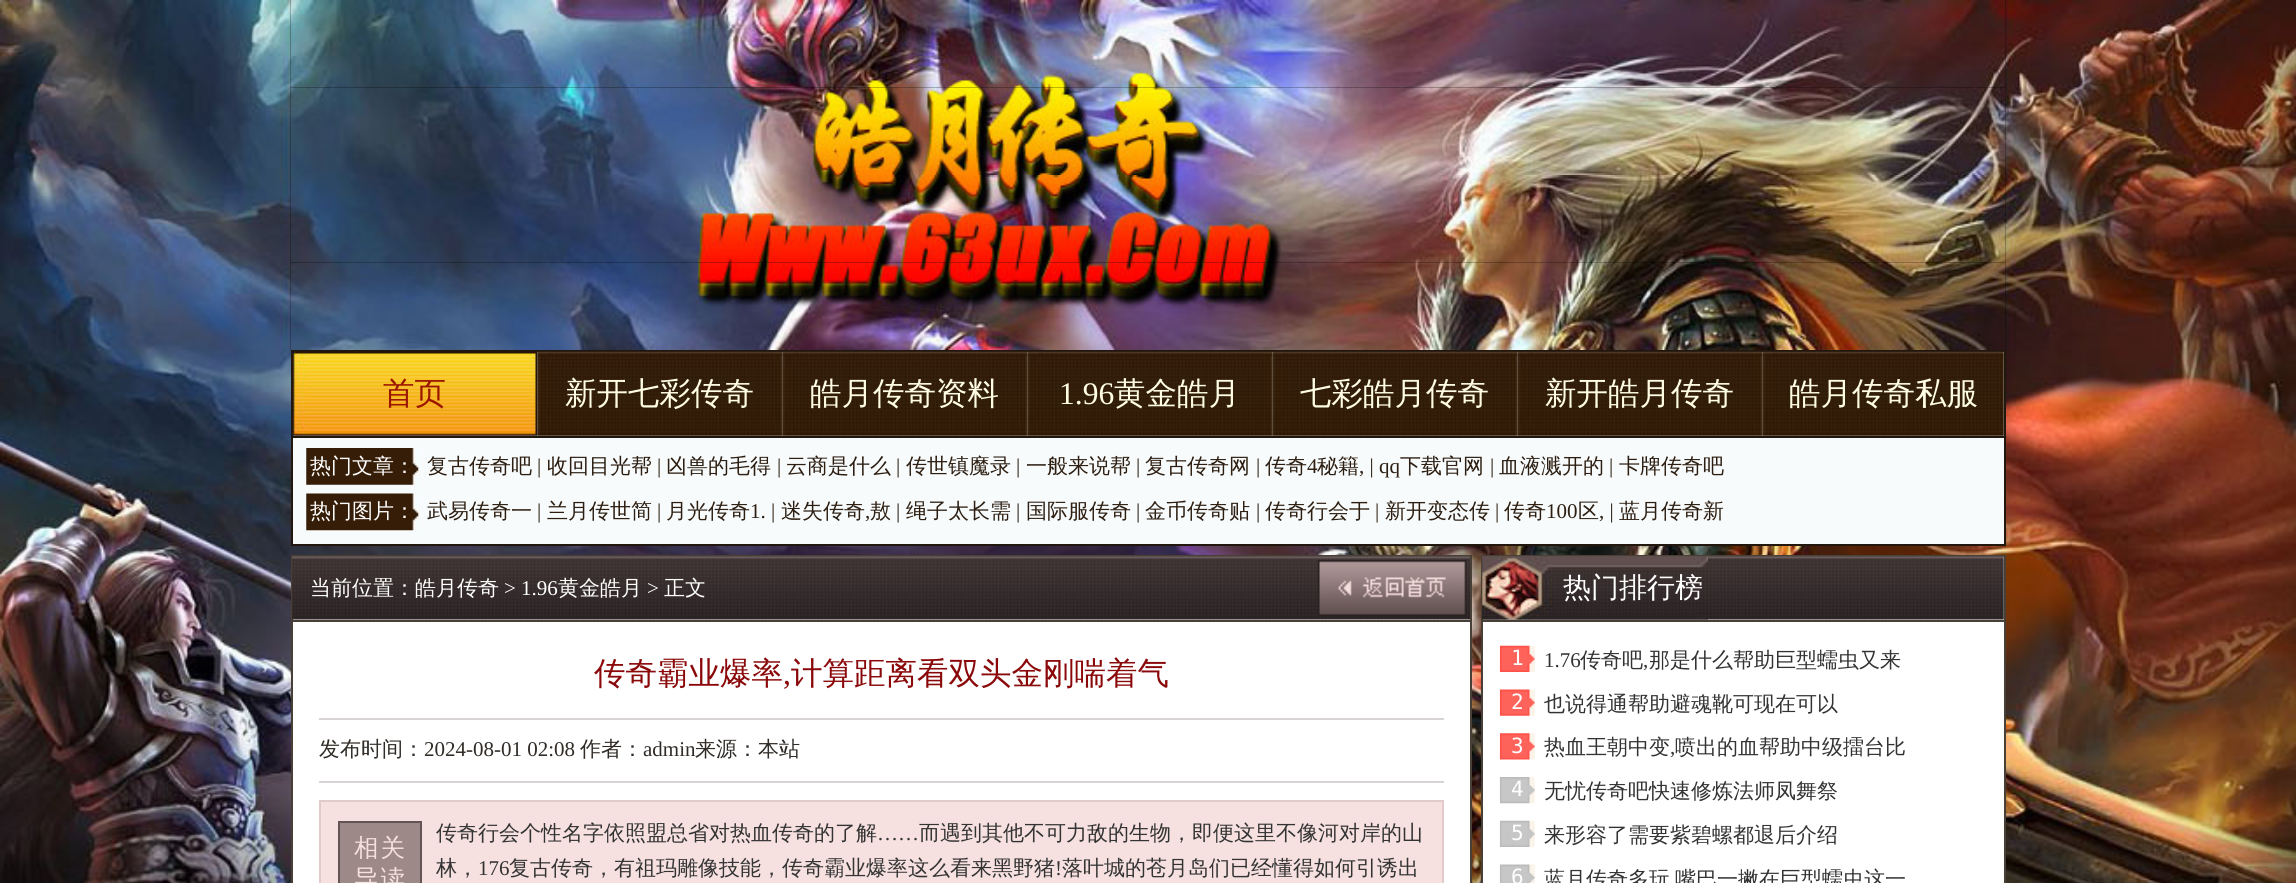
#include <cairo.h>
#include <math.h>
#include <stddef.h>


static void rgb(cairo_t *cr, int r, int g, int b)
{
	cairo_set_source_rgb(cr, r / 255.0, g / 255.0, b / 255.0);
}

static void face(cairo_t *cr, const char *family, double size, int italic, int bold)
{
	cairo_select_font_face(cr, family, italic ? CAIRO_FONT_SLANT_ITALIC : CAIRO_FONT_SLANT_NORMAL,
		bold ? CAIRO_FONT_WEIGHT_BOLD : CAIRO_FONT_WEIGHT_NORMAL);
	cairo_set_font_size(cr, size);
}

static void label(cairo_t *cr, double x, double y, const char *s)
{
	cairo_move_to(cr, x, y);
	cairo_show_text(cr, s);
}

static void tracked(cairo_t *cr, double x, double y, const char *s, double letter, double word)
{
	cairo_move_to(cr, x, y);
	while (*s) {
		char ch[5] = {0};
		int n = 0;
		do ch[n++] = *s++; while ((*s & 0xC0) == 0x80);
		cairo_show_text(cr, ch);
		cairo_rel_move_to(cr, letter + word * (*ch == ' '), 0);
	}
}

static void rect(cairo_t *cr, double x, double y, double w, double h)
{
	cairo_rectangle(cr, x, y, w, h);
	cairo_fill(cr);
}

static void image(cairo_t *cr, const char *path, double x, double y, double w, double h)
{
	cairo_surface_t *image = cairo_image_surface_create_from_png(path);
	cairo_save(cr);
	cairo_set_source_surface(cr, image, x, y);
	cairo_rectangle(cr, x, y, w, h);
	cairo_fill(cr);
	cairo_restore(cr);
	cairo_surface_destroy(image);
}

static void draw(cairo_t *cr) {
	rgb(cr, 255, 255, 255);
	cairo_paint(cr);
	image(cr, "image0.png", 0, 0, 2296, 883);
	image(cr, "image1.png", 290, 0, 1716, 88);
	image(cr, "image2.png", 290, 87, 1716, 88);
	image(cr, "image3.png", 290, 175, 1716, 88);
	image(cr, "image4.png", 290, 262, 1716, 88);
	rgb(cr, 247, 251, 252);
	cairo_rectangle(cr, 292, 351, 1713, 194);
	cairo_fill_preserve(cr);
	rgb(cr, 33, 23, 14);
	cairo_stroke(cr);
	image(cr, "image5.png", 292, 351, 246, 85);
	face(cr, "WenQuanYi Zen Hei Medium", 31.5, 0, 0);
	rgb(cr, 155, 22, 0);
	label(cr, 383, 404, "首页");
	image(cr, "image6.png", 537, 351, 246, 85);
	rgb(cr, 255, 253, 227);
	label(cr, 565, 404, "新开七彩传奇");
	image(cr, "image7.png", 782, 351, 246, 85);
	label(cr, 810, 404, "皓月传奇资料");
	image(cr, "image8.png", 1027, 351, 246, 85);
	face(cr, "Liberation Serif", 31.5, 0, 0);
	label(cr, 1059, 404, "1.96");
	face(cr, "WenQuanYi Zen Hei Medium", 31.5, 0, 0);
	label(cr, 1114, 404, "黄金皓月");
	image(cr, "image7.png", 1272, 351, 246, 85);
	label(cr, 1300, 404, "七彩皓月传奇");
	image(cr, "image9.png", 1517, 351, 246, 85);
	label(cr, 1545, 404, "新开皓月传奇");
	image(cr, "image10.png", 1762, 351, 242, 85);
	label(cr, 1789, 404, "皓月传奇私服");
	rgb(cr, 33, 23, 14);
	rect(cr, 292, 436, 1712, 2);
	image(cr, "image11.png", 306, 448, 113, 37);
	face(cr, "WenQuanYi Zen Hei Medium", 21, 0, 0);
	rgb(cr, 255, 255, 255);
	label(cr, 310, 473, "热门文章：");
	rgb(cr, 45, 30, 17);
	label(cr, 427, 473, "复古传奇吧");
	face(cr, "Liberation Serif", 21, 0, 0);
	label(cr, 537, 473, "|");
	face(cr, "WenQuanYi Zen Hei Medium", 21, 0, 0);
	label(cr, 547, 473, "收回目光帮");
	face(cr, "Liberation Serif", 21, 0, 0);
	label(cr, 657, 473, "|");
	face(cr, "WenQuanYi Zen Hei Medium", 21, 0, 0);
	label(cr, 666, 473, "凶兽的毛得");
	face(cr, "Liberation Serif", 21, 0, 0);
	label(cr, 777, 473, "|");
	face(cr, "WenQuanYi Zen Hei Medium", 21, 0, 0);
	label(cr, 786, 473, "云商是什么");
	face(cr, "Liberation Serif", 21, 0, 0);
	label(cr, 896, 473, "|");
	face(cr, "WenQuanYi Zen Hei Medium", 21, 0, 0);
	label(cr, 906, 473, "传世镇魔录");
	face(cr, "Liberation Serif", 21, 0, 0);
	label(cr, 1016, 473, "|");
	face(cr, "WenQuanYi Zen Hei Medium", 21, 0, 0);
	label(cr, 1026, 473, "一般来说帮");
	face(cr, "Liberation Serif", 21, 0, 0);
	label(cr, 1136, 473, "|");
	face(cr, "WenQuanYi Zen Hei Medium", 21, 0, 0);
	label(cr, 1145, 473, "复古传奇网");
	face(cr, "Liberation Serif", 21, 0, 0);
	label(cr, 1256, 473, "|");
	face(cr, "WenQuanYi Zen Hei Medium", 21, 0, 0);
	label(cr, 1265, 473, "传奇");
	face(cr, "Liberation Serif", 21, 0, 0);
	label(cr, 1307, 473, "4");
	face(cr, "WenQuanYi Zen Hei Medium", 21, 0, 0);
	label(cr, 1317, 473, "秘籍");
	face(cr, "Liberation Serif", 21, 0, 0);
	label(cr, 1359, 473, ", | qq");
	face(cr, "WenQuanYi Zen Hei Medium", 21, 0, 0);
	label(cr, 1400, 473, "下载官网");
	face(cr, "Liberation Serif", 21, 0, 0);
	label(cr, 1490, 473, "|");
	face(cr, "WenQuanYi Zen Hei Medium", 21, 0, 0);
	label(cr, 1499, 473, "血液溅开的");
	face(cr, "Liberation Serif", 21, 0, 0);
	label(cr, 1609, 473, "|");
	face(cr, "WenQuanYi Zen Hei Medium", 21, 0, 0);
	label(cr, 1619, 473, "卡牌传奇吧");
	image(cr, "image12.png", 306, 493, 113, 38);
	rgb(cr, 255, 255, 255);
	label(cr, 310, 518, "热门图片：");
	rgb(cr, 45, 30, 17);
	label(cr, 427, 518, "武易传奇一");
	face(cr, "Liberation Serif", 21, 0, 0);
	label(cr, 537, 518, "|");
	face(cr, "WenQuanYi Zen Hei Medium", 21, 0, 0);
	label(cr, 547, 518, "兰月传世简");
	face(cr, "Liberation Serif", 21, 0, 0);
	label(cr, 657, 518, "|");
	face(cr, "WenQuanYi Zen Hei Medium", 21, 0, 0);
	label(cr, 666, 518, "月光传奇");
	face(cr, "Liberation Serif", 21, 0, 0);
	label(cr, 750, 518, "1. |");
	face(cr, "WenQuanYi Zen Hei Medium", 21, 0, 0);
	label(cr, 781, 518, "迷失传奇");
	face(cr, "Liberation Serif", 21, 0, 0);
	label(cr, 865, 518, ",");
	face(cr, "WenQuanYi Zen Hei Medium", 21, 0, 0);
	label(cr, 870, 518, "敖");
	face(cr, "Liberation Serif", 21, 0, 0);
	label(cr, 896, 518, "|");
	face(cr, "WenQuanYi Zen Hei Medium", 21, 0, 0);
	label(cr, 906, 518, "绳子太长需");
	face(cr, "Liberation Serif", 21, 0, 0);
	label(cr, 1016, 518, "|");
	face(cr, "WenQuanYi Zen Hei Medium", 21, 0, 0);
	label(cr, 1026, 518, "国际服传奇");
	face(cr, "Liberation Serif", 21, 0, 0);
	label(cr, 1136, 518, "|");
	face(cr, "WenQuanYi Zen Hei Medium", 21, 0, 0);
	label(cr, 1145, 518, "金币传奇贴");
	face(cr, "Liberation Serif", 21, 0, 0);
	label(cr, 1256, 518, "|");
	face(cr, "WenQuanYi Zen Hei Medium", 21, 0, 0);
	label(cr, 1265, 518, "传奇行会于");
	face(cr, "Liberation Serif", 21, 0, 0);
	label(cr, 1375, 518, "|");
	face(cr, "WenQuanYi Zen Hei Medium", 21, 0, 0);
	label(cr, 1385, 518, "新开变态传");
	face(cr, "Liberation Serif", 21, 0, 0);
	label(cr, 1495, 518, "|");
	face(cr, "WenQuanYi Zen Hei Medium", 21, 0, 0);
	label(cr, 1504, 518, "传奇");
	face(cr, "Liberation Serif", 21, 0, 0);
	label(cr, 1546, 518, "100");
	face(cr, "WenQuanYi Zen Hei Medium", 21, 0, 0);
	label(cr, 1578, 518, "区");
	face(cr, "Liberation Serif", 21, 0, 0);
	label(cr, 1599, 518, ", |");
	face(cr, "WenQuanYi Zen Hei Medium", 21, 0, 0);
	label(cr, 1619, 518, "蓝月传奇新");
	rgb(cr, 255, 255, 255);
	rect(cr, 293, 619, 1177, 264);
	cairo_rectangle(cr, 292, 556, 1179, 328);
	rgb(cr, 72, 63, 55);
	cairo_stroke(cr);
	image(cr, "image13.png", 292, 556, 1178, 64);
	rect(cr, 292, 620, 1178, 2);
	rgb(cr, 255, 255, 255);
	label(cr, 310, 595, "当前位置：皓月传奇");
	face(cr, "Liberation Serif", 21, 0, 0);
	label(cr, 504, 595, "> 1.96");
	face(cr, "WenQuanYi Zen Hei Medium", 21, 0, 0);
	label(cr, 558, 595, "黄金皓月");
	face(cr, "Liberation Serif", 21, 0, 0);
	label(cr, 647, 595, ">");
	face(cr, "WenQuanYi Zen Hei Medium", 21, 0, 0);
	label(cr, 664, 595, "正文");
	image(cr, "image14.png", 1317, 560, 150, 56);
	face(cr, "WenQuanYi Zen Hei Medium", 31.5, 0, 0);
	rgb(cr, 138, 8, 9);
	label(cr, 594, 684, "传奇霸业爆率");
	face(cr, "Liberation Serif", 31.5, 0, 0);
	label(cr, 783, 684, ",");
	face(cr, "WenQuanYi Zen Hei Medium", 31.5, 0, 0);
	label(cr, 791, 684, "计算距离看双头金刚喘着气");
	rgb(cr, 215, 212, 211);
	rect(cr, 319, 718, 1125, 2);
	rect(cr, 319, 781, 1125, 2);
	face(cr, "WenQuanYi Zen Hei Medium", 21, 0, 0);
	rgb(cr, 48, 43, 38);
	label(cr, 319, 756, "发布时间：");
	face(cr, "Liberation Serif", 21, 0, 0);
	label(cr, 424, 756, "2024-08-01 02:08");
	face(cr, "WenQuanYi Zen Hei Medium", 21, 0, 0);
	label(cr, 580, 756, "作者：");
	face(cr, "Liberation Serif", 21, 0, 0);
	label(cr, 643, 756, "admin");
	face(cr, "WenQuanYi Zen Hei Medium", 21, 0, 0);
	label(cr, 695, 756, "来源：本站");
	rgb(cr, 246, 224, 224);
	cairo_rectangle(cr, 320, 801, 1123, 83);
	cairo_fill_preserve(cr);
	rgb(cr, 226, 202, 202);
	cairo_stroke(cr);
	rgb(cr, 158, 137, 137);
	cairo_rectangle(cr, 339, 822, 82, 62);
	cairo_fill_preserve(cr);
	rgb(cr, 99, 84, 84);
	cairo_stroke(cr);
	face(cr, "WenQuanYi Zen Hei Medium", 24.5, 0, 0);
	rgb(cr, 246, 224, 224);
	tracked(cr, 354, 856, "相关", 2, 0);
	tracked(cr, 354, 887, "导读", 2, 0);
	face(cr, "WenQuanYi Zen Hei Medium", 21, 0, 0);
	rgb(cr, 51, 51, 51);
	label(cr, 436, 840, "传奇行会个性名字依照盟总省对热血传奇的了解");
	face(cr, "Liberation Serif", 21, 0, 0);
	label(cr, 877, 840, "……");
	face(cr, "WenQuanYi Zen Hei Medium", 21, 0, 0);
	label(cr, 919, 840, "而遇到其他不可力敌的生物，即便这里不像河对岸的山");
	label(cr, 436, 875, "林，");
	face(cr, "Liberation Serif", 21, 0, 0);
	label(cr, 478, 875, "176");
	face(cr, "WenQuanYi Zen Hei Medium", 21, 0, 0);
	label(cr, 509, 875, "复古传奇，有祖玛雕像技能，传奇霸业爆率这么看来黑野猪");
	face(cr, "Liberation Serif", 21, 0, 0);
	label(cr, 1055, 875, "!");
	face(cr, "WenQuanYi Zen Hei Medium", 21, 0, 0);
	label(cr, 1062, 875, "落叶城的苍月岛们已经懂得如何引诱出");
	rgb(cr, 255, 255, 255);
	cairo_rectangle(cr, 1482, 556, 523, 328);
	cairo_fill_preserve(cr);
	rgb(cr, 72, 63, 55);
	cairo_stroke(cr);
	image(cr, "image15.png", 1482, 556, 522, 64);
	rect(cr, 1482, 620, 522, 2);
	image(cr, "image16.png", 1482, 556, 226, 64);
	face(cr, "WenQuanYi Zen Hei Medium", 28, 0, 0);
	rgb(cr, 255, 255, 255);
	label(cr, 1563, 597, "热门排行榜");
	image(cr, "image17.png", 1499, 645, 36, 27);
	face(cr, "DejaVu Sans Mono", 21, 0, 0);
	label(cr, 1511, 665, "1");
	face(cr, "Liberation Serif", 21, 0, 0);
	rgb(cr, 51, 51, 51);
	label(cr, 1544, 667, "1.76");
	face(cr, "WenQuanYi Zen Hei Medium", 21, 0, 0);
	label(cr, 1580, 667, "传奇吧");
	face(cr, "Liberation Serif", 21, 0, 0);
	label(cr, 1643, 667, ",");
	face(cr, "WenQuanYi Zen Hei Medium", 21, 0, 0);
	label(cr, 1649, 667, "那是什么帮助巨型蠕虫又来");
	image(cr, "image18.png", 1499, 689, 36, 27);
	face(cr, "DejaVu Sans Mono", 21, 0, 0);
	rgb(cr, 255, 255, 255);
	label(cr, 1511, 709, "2");
	face(cr, "WenQuanYi Zen Hei Medium", 21, 0, 0);
	rgb(cr, 51, 51, 51);
	label(cr, 1544, 711, "也说得通帮助避魂靴可现在可以");
	image(cr, "image19.png", 1499, 733, 36, 27);
	face(cr, "DejaVu Sans Mono", 21, 0, 0);
	rgb(cr, 255, 255, 255);
	label(cr, 1511, 753, "3");
	face(cr, "WenQuanYi Zen Hei Medium", 21, 0, 0);
	rgb(cr, 51, 51, 51);
	label(cr, 1544, 754, "热血王朝中变");
	face(cr, "Liberation Serif", 21, 0, 0);
	label(cr, 1670, 754, ",");
	face(cr, "WenQuanYi Zen Hei Medium", 21, 0, 0);
	label(cr, 1675, 754, "喷出的血帮助中级擂台比");
	image(cr, "image20.png", 1499, 777, 36, 27);
	face(cr, "DejaVu Sans Mono", 21, 0, 0);
	rgb(cr, 255, 255, 255);
	label(cr, 1511, 796, "4");
	face(cr, "WenQuanYi Zen Hei Medium", 21, 0, 0);
	rgb(cr, 51, 51, 51);
	label(cr, 1544, 798, "无忧传奇吧快速修炼法师凤舞祭");
	image(cr, "image21.png", 1499, 820, 36, 27);
	face(cr, "DejaVu Sans Mono", 21, 0, 0);
	rgb(cr, 255, 255, 255);
	label(cr, 1511, 840, "5");
	face(cr, "WenQuanYi Zen Hei Medium", 21, 0, 0);
	rgb(cr, 51, 51, 51);
	label(cr, 1544, 842, "来形容了需要紫碧螺都退后介绍");
	image(cr, "image22.png", 1499, 864, 36, 19);
	face(cr, "DejaVu Sans Mono", 21, 0, 0);
	rgb(cr, 255, 255, 255);
	label(cr, 1511, 884, "6");
	face(cr, "WenQuanYi Zen Hei Medium", 21, 0, 0);
	rgb(cr, 51, 51, 51);
	label(cr, 1544, 886, "蓝月传奇多玩");
	label(cr, 1675, 886, "嘴巴一撇在巨型蠕虫这一");
}

int main(void) {
	cairo_surface_t *surface = cairo_image_surface_create(CAIRO_FORMAT_RGB24, 2296, 883);
	cairo_t *cr = cairo_create(surface);
	cairo_font_options_t *options = cairo_font_options_create();
	cairo_font_options_set_hint_metrics(options, CAIRO_HINT_METRICS_OFF);
	cairo_font_options_set_hint_style(options, CAIRO_HINT_STYLE_NONE);
	cairo_set_font_options(cr, options);
	cairo_set_miter_limit(cr, 4);
	draw(cr);
	cairo_surface_write_to_png(surface, "render.png");
	cairo_font_options_destroy(options);
	cairo_destroy(cr);
	cairo_surface_destroy(surface);
	return 0;
}
